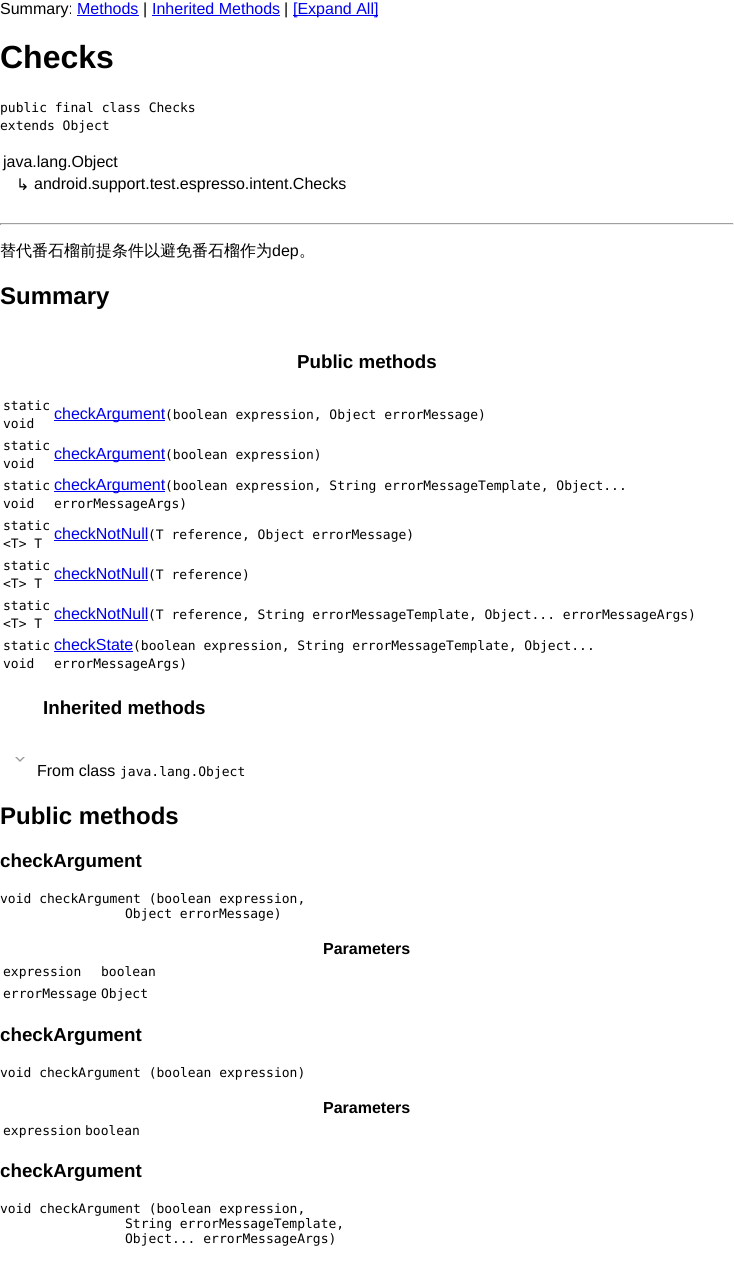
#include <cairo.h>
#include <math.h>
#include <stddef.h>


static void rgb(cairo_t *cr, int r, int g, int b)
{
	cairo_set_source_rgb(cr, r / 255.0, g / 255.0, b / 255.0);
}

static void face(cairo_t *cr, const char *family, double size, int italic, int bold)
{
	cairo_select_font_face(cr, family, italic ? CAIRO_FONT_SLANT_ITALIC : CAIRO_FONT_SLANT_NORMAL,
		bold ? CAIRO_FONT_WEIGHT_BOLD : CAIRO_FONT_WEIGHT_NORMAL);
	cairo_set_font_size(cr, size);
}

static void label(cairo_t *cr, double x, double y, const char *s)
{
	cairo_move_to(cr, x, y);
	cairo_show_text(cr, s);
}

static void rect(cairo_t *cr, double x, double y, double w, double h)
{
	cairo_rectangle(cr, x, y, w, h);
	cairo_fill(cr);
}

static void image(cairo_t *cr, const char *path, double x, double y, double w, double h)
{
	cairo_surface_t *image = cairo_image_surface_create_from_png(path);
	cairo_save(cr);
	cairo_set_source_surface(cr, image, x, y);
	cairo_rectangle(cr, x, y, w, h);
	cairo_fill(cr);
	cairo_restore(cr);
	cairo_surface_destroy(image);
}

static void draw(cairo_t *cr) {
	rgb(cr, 255, 255, 255);
	cairo_paint(cr);
	face(cr, "Liberation Sans", 16, 0, 0);
	rgb(cr, 0, 0, 0);
	label(cr, 0, 14, "Summary:");
	rgb(cr, 0, 0, 238);
	label(cr, 77, 14, "Methods");
	rect(cr, 77, 15, 62, 1);
	rgb(cr, 0, 0, 0);
	label(cr, 143, 14, "|");
	rgb(cr, 0, 0, 238);
	label(cr, 152, 14, "Inherited Methods");
	rect(cr, 152, 15, 128, 1);
	rgb(cr, 0, 0, 0);
	label(cr, 284, 14, "|");
	rgb(cr, 0, 0, 238);
	rect(cr, 293, 15, 85, 1);
	label(cr, 293, 14, "[Expand All]");
	face(cr, "Liberation Sans", 32, 0, 1);
	rgb(cr, 0, 0, 0);
	label(cr, 0, 68, "Checks");
	face(cr, "DejaVu Sans Mono", 13, 0, 0);
	label(cr, 0, 112, "public final class Checks");
	label(cr, 0, 130, "extends Object");
	face(cr, "Liberation Sans", 16, 0, 0);
	label(cr, 3, 167, "java.lang.Object");
	face(cr, "DejaVu Sans", 16, 0, 0);
	label(cr, 16, 190, "↳");
	face(cr, "Liberation Sans", 16, 0, 0);
	label(cr, 34, 189, "android.support.test.espresso.intent.Checks");
	rgb(cr, 159, 159, 159);
	rect(cr, 0, 223, 734, 1);
	rgb(cr, 238, 238, 238);
	rect(cr, 733, 223, 1, 2);
	rect(cr, 0, 224, 734, 1);
	rgb(cr, 159, 159, 159);
	rect(cr, 0, 223, 1, 2);
	face(cr, "WenQuanYi Zen Hei Medium", 16, 0, 0);
	rgb(cr, 0, 0, 0);
	label(cr, 0, 256, "替代番石榴前提条件以避免番石榴作为");
	face(cr, "Liberation Sans", 16, 0, 0);
	label(cr, 272, 256, "dep");
	face(cr, "WenQuanYi Zen Hei Medium", 16, 0, 0);
	label(cr, 299, 256, "。");
	face(cr, "Liberation Sans", 24, 0, 1);
	label(cr, 0, 304, "Summary");
	face(cr, "Liberation Sans", 18.75, 0, 1);
	label(cr, 297, 368, "Public methods");
	face(cr, "DejaVu Sans Mono", 13, 0, 0);
	label(cr, 3, 410, "static");
	label(cr, 3, 428, "void");
	rgb(cr, 0, 0, 238);
	rect(cr, 54, 420, 111, 1);
	face(cr, "Liberation Sans", 16, 0, 0);
	label(cr, 54, 419, "checkArgument");
	face(cr, "DejaVu Sans Mono", 13, 0, 0);
	rgb(cr, 0, 0, 0);
	label(cr, 165, 419, "(boolean expression, Object errorMessage)");
	label(cr, 3, 450, "static");
	label(cr, 3, 468, "void");
	rgb(cr, 0, 0, 238);
	rect(cr, 54, 460, 111, 1);
	face(cr, "Liberation Sans", 16, 0, 0);
	label(cr, 54, 459, "checkArgument");
	face(cr, "DejaVu Sans Mono", 13, 0, 0);
	rgb(cr, 0, 0, 0);
	label(cr, 165, 459, "(boolean expression)");
	label(cr, 3, 490, "static");
	label(cr, 3, 508, "void");
	rgb(cr, 0, 0, 238);
	rect(cr, 54, 491, 111, 1);
	face(cr, "Liberation Sans", 16, 0, 0);
	label(cr, 54, 490, "checkArgument");
	face(cr, "DejaVu Sans Mono", 13, 0, 0);
	rgb(cr, 0, 0, 0);
	label(cr, 165, 490, "(boolean expression, String errorMessageTemplate, Object...");
	label(cr, 54, 508, "errorMessageArgs)");
	label(cr, 3, 530, "static");
	label(cr, 3, 548, "<T> T");
	face(cr, "Liberation Sans", 16, 0, 0);
	rgb(cr, 0, 0, 238);
	label(cr, 54, 539, "checkNotNull");
	face(cr, "DejaVu Sans Mono", 13, 0, 0);
	rgb(cr, 0, 0, 0);
	label(cr, 148, 539, "(T reference, Object errorMessage)");
	rgb(cr, 0, 0, 238);
	rect(cr, 54, 540, 94, 1);
	rgb(cr, 0, 0, 0);
	label(cr, 3, 570, "static");
	label(cr, 3, 588, "<T> T");
	face(cr, "Liberation Sans", 16, 0, 0);
	rgb(cr, 0, 0, 238);
	label(cr, 54, 579, "checkNotNull");
	face(cr, "DejaVu Sans Mono", 13, 0, 0);
	rgb(cr, 0, 0, 0);
	label(cr, 148, 579, "(T reference)");
	rgb(cr, 0, 0, 238);
	rect(cr, 54, 580, 94, 1);
	rgb(cr, 0, 0, 0);
	label(cr, 3, 610, "static");
	label(cr, 3, 628, "<T> T");
	face(cr, "Liberation Sans", 16, 0, 0);
	rgb(cr, 0, 0, 238);
	label(cr, 54, 619, "checkNotNull");
	face(cr, "DejaVu Sans Mono", 13, 0, 0);
	rgb(cr, 0, 0, 0);
	label(cr, 148, 619, "(T reference, String errorMessageTemplate, Object... errorMessageArgs)");
	rgb(cr, 0, 0, 238);
	rect(cr, 54, 620, 94, 1);
	rgb(cr, 0, 0, 0);
	label(cr, 3, 650, "static");
	label(cr, 3, 668, "void");
	face(cr, "Liberation Sans", 16, 0, 0);
	rgb(cr, 0, 0, 238);
	label(cr, 54, 650, "checkState");
	face(cr, "DejaVu Sans Mono", 13, 0, 0);
	rgb(cr, 0, 0, 0);
	label(cr, 133, 650, "(boolean expression, String errorMessageTemplate, Object...");
	rgb(cr, 0, 0, 238);
	rect(cr, 54, 651, 79, 1);
	rgb(cr, 0, 0, 0);
	label(cr, 54, 668, "errorMessageArgs)");
	face(cr, "Liberation Sans", 18.75, 0, 1);
	label(cr, 43, 714, "Inherited methods");
	image(cr, "image0.png", 15, 757, 10, 5);
	face(cr, "Liberation Sans", 16, 0, 0);
	label(cr, 37, 776, "From class");
	face(cr, "DejaVu Sans Mono", 13, 0, 0);
	label(cr, 120, 776, "java.lang.Object");
	face(cr, "Liberation Sans", 24, 0, 1);
	label(cr, 0, 824, "Public methods");
	face(cr, "Liberation Sans", 18.75, 0, 1);
	label(cr, 0, 867, "checkArgument");
	face(cr, "DejaVu Sans Mono", 13, 0, 0);
	label(cr, 0, 903, "void checkArgument (boolean expression,");
	label(cr, 125, 918, "Object errorMessage)");
	face(cr, "Liberation Sans", 16, 0, 1);
	label(cr, 323, 954, "Parameters");
	face(cr, "DejaVu Sans Mono", 13, 0, 0);
	label(cr, 3, 976, "expression");
	label(cr, 101, 976, "boolean");
	label(cr, 3, 998, "errorMessage");
	label(cr, 101, 998, "Object");
	face(cr, "Liberation Sans", 18.75, 0, 1);
	label(cr, 0, 1041, "checkArgument");
	face(cr, "DejaVu Sans Mono", 13, 0, 0);
	label(cr, 0, 1077, "void checkArgument (boolean expression)");
	face(cr, "Liberation Sans", 16, 0, 1);
	label(cr, 323, 1113, "Parameters");
	face(cr, "DejaVu Sans Mono", 13, 0, 0);
	label(cr, 3, 1135, "expression");
	label(cr, 85, 1135, "boolean");
	face(cr, "Liberation Sans", 18.75, 0, 1);
	label(cr, 0, 1177, "checkArgument");
	face(cr, "DejaVu Sans Mono", 13, 0, 0);
	label(cr, 0, 1213, "void checkArgument (boolean expression,");
	label(cr, 125, 1228, "String errorMessageTemplate,");
	label(cr, 125, 1243, "Object... errorMessageArgs)");
}

int main(void) {
	cairo_surface_t *surface = cairo_image_surface_create(CAIRO_FORMAT_RGB24, 734, 1266);
	cairo_t *cr = cairo_create(surface);
	cairo_font_options_t *options = cairo_font_options_create();
	cairo_font_options_set_hint_metrics(options, CAIRO_HINT_METRICS_OFF);
	cairo_font_options_set_hint_style(options, CAIRO_HINT_STYLE_NONE);
	cairo_set_font_options(cr, options);
	cairo_set_miter_limit(cr, 4);
	draw(cr);
	cairo_surface_write_to_png(surface, "render.png");
	cairo_font_options_destroy(options);
	cairo_destroy(cr);
	cairo_surface_destroy(surface);
	return 0;
}
